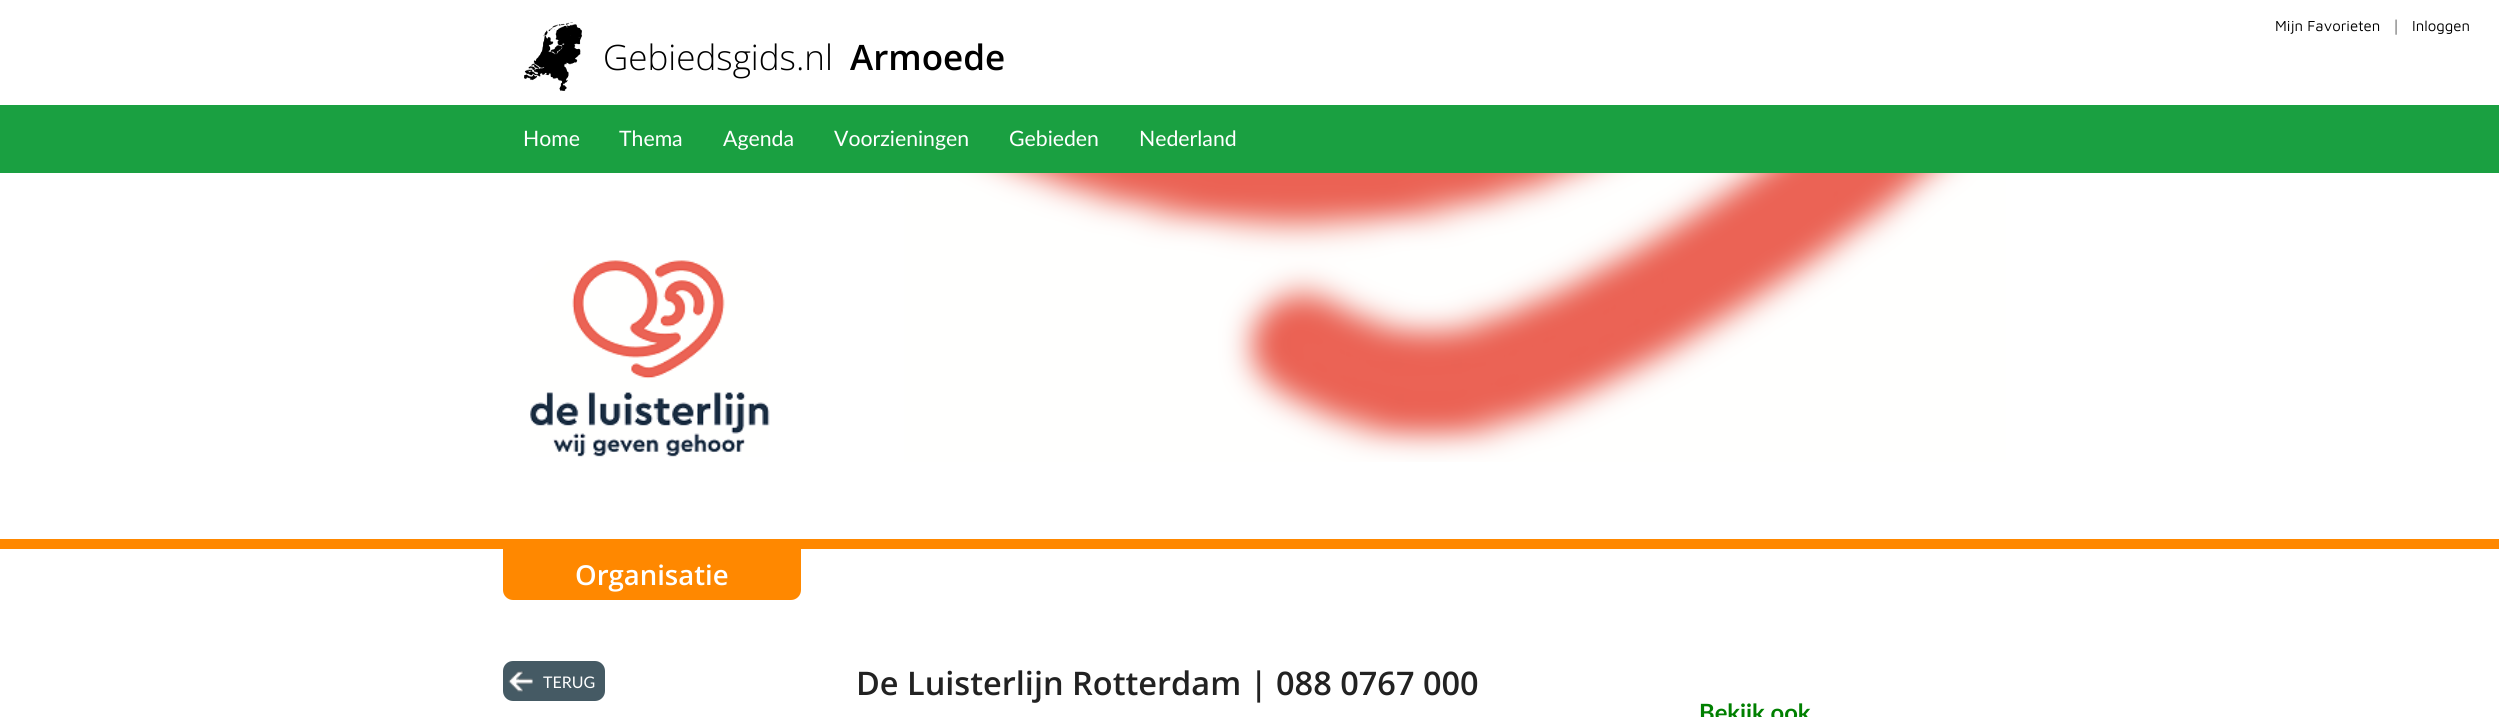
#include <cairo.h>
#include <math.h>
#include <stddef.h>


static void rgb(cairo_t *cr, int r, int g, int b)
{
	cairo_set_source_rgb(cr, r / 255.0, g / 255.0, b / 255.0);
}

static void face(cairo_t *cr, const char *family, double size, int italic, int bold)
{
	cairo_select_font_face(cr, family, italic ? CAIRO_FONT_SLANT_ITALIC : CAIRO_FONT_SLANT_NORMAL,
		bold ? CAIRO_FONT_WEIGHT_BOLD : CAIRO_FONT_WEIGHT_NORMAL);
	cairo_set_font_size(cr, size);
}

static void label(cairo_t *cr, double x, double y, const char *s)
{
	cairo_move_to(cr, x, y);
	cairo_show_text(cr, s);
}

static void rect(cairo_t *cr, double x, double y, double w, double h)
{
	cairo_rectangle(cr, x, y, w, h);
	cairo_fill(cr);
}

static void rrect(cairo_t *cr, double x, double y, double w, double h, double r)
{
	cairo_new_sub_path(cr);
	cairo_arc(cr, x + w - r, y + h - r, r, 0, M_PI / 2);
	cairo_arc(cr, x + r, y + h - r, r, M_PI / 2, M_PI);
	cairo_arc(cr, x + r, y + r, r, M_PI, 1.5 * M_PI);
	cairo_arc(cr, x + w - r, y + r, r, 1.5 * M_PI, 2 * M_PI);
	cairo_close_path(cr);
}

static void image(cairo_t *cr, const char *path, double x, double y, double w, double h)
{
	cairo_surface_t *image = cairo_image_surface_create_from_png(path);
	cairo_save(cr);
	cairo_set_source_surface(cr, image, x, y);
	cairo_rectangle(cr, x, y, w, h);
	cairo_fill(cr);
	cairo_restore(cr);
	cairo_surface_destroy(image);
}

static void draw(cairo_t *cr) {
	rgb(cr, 255, 255, 255);
	cairo_paint(cr);
	face(cr, "Maven Pro", 15, 0, 0);
	rgb(cr, 0, 0, 0);
	label(cr, 2275, 31, "Mijn Favorieten");
	face(cr, "Open Sans Light", 15, 0, 0);
	label(cr, 2392, 31, "|");
	face(cr, "Maven Pro", 15, 0, 0);
	label(cr, 2412, 31, "Inloggen");
	image(cr, "image0.png", 524, 22, 58, 69);
	face(cr, "Open Sans Light", 35, 0, 0);
	label(cr, 603, 70, "Gebiedsgids.nl");
	face(cr, "Open Sans SemiBold", 35, 0, 0);
	label(cr, 850, 70, "Armoede");
	rgb(cr, 26, 160, 65);
	rect(cr, 0, 105, 2499, 68);
	face(cr, "Lato", 21.25, 0, 0);
	rgb(cr, 255, 255, 255);
	label(cr, 523, 146, "Home");
	label(cr, 619, 146, "Thema");
	label(cr, 723, 146, "Agenda");
	label(cr, 834, 146, "Voorzieningen");
	label(cr, 1009, 146, "Gebieden");
	label(cr, 1139, 146, "Nederland");
	rgb(cr, 69, 90, 100);
	rrect(cr, 503, 661, 102, 40, 10);
	cairo_fill(cr);
	image(cr, "image1.png", 508, 671, 25, 21);
	face(cr, "Lato", 16, 0, 0);
	rgb(cr, 255, 255, 255);
	label(cr, 543, 688, "TERUG");
	face(cr, "Open Sans SemiBold", 32.5, 0, 0);
	rgb(cr, 34, 34, 34);
	label(cr, 856, 695, "De Luisterlijn Rotterdam | 088 0767 000");
	face(cr, "Lato", 23.75, 0, 1);
	rgb(cr, 0, 128, 0);
	label(cr, 1699, 721, "Bekijk ook");
	rgb(cr, 255, 136, 0);
	cairo_new_path(cr);
	cairo_move_to(cr, 503, 549);
	cairo_line_to(cr, 801, 549);
	cairo_line_to(cr, 801, 590);
	cairo_curve_to(cr, 801, 595.5, 796.5, 600, 791, 600);
	cairo_line_to(cr, 513, 600);
	cairo_curve_to(cr, 507.5, 600, 503, 595.5, 503, 590);
	cairo_close_path(cr);
	cairo_fill(cr);
	face(cr, "Open Sans SemiBold", 27.5, 0, 0);
	rgb(cr, 255, 255, 255);
	label(cr, 575, 585, "Organisatie");
	image(cr, "image2.png", 530, 260, 240, 197);
	image(cr, "image3.png", 904, 173, 1102, 289);
	rgb(cr, 255, 136, 0);
	rect(cr, 0, 539, 2499, 10);
}

int main(void) {
	cairo_surface_t *surface = cairo_image_surface_create(CAIRO_FORMAT_RGB24, 2499, 717);
	cairo_t *cr = cairo_create(surface);
	cairo_font_options_t *options = cairo_font_options_create();
	cairo_font_options_set_hint_metrics(options, CAIRO_HINT_METRICS_OFF);
	cairo_font_options_set_hint_style(options, CAIRO_HINT_STYLE_NONE);
	cairo_set_font_options(cr, options);
	cairo_set_miter_limit(cr, 4);
	draw(cr);
	cairo_surface_write_to_png(surface, "render.png");
	cairo_font_options_destroy(options);
	cairo_destroy(cr);
	cairo_surface_destroy(surface);
	return 0;
}
